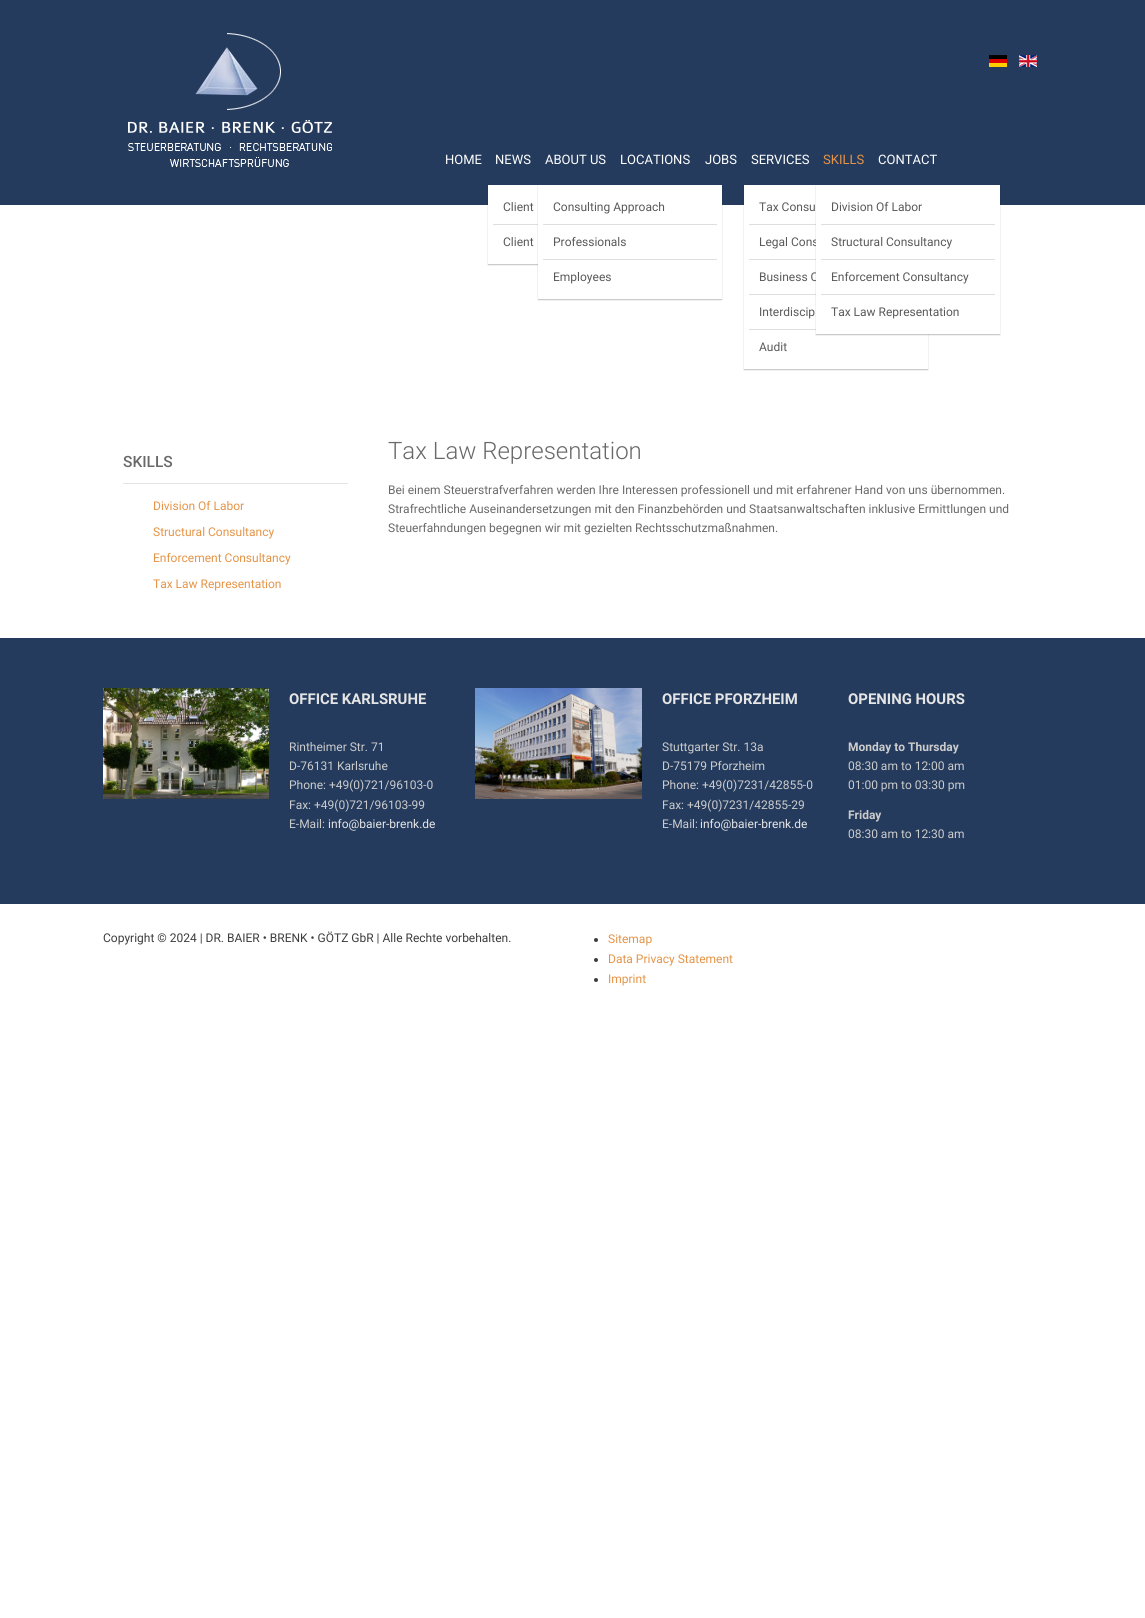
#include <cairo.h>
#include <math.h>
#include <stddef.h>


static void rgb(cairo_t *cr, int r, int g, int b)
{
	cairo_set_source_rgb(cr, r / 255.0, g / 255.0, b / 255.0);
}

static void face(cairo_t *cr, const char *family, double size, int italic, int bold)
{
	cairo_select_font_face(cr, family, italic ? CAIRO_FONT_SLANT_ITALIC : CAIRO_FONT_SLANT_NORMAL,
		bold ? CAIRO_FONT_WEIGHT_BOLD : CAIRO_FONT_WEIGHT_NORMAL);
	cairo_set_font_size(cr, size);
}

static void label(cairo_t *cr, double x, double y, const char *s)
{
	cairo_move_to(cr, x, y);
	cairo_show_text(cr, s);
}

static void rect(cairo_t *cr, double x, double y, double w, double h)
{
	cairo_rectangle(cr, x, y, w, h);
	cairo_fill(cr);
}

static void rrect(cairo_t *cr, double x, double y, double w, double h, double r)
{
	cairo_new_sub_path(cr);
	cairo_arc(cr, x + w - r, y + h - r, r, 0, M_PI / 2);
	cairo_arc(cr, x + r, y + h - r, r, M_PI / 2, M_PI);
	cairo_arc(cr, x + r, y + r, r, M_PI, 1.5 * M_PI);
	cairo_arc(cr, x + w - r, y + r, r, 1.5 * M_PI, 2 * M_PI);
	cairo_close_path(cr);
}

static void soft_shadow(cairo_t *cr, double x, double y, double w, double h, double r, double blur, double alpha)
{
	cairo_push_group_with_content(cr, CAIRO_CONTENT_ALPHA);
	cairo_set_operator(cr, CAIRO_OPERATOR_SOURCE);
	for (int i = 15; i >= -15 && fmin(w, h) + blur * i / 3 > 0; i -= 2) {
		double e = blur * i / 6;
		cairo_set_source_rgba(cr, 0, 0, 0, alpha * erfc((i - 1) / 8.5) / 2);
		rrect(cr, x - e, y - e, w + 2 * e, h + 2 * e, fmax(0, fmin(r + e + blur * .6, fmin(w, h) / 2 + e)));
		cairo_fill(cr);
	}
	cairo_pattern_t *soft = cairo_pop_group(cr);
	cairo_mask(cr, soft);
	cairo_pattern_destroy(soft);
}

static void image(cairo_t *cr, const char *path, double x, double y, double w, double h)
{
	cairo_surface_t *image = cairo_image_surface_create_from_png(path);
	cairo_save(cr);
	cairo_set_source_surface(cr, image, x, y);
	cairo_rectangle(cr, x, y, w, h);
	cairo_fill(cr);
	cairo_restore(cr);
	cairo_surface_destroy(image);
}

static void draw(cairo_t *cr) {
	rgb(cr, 255, 255, 255);
	cairo_paint(cr);
	rgb(cr, 36, 59, 93);
	rect(cr, 0, 0, 1145, 205);
	image(cr, "image0.png", 128, 33, 204, 134);
	image(cr, "image1.png", 989, 55, 18, 12);
	image(cr, "image2.png", 1019, 55, 18, 12);
	face(cr, "Roboto", 13, 0, 0);
	rgb(cr, 255, 255, 255);
	label(cr, 445, 164, "HOME");
	label(cr, 495, 164, "NEWS");
	rgb(cr, 0, 0, 0);
	soft_shadow(cr, 488, 186, 184, 79, 0, 0.5, 0.23);
	rgb(cr, 255, 255, 255);
	rect(cr, 488, 185, 50, 79);
	face(cr, "Roboto", 12, 0, 0);
	rgb(cr, 89, 89, 89);
	label(cr, 503, 211, "Client");
	rgb(cr, 222, 222, 222);
	rect(cr, 493, 224, 45, 1);
	rgb(cr, 89, 89, 89);
	label(cr, 503, 246, "Client");
	face(cr, "Roboto", 13, 0, 0);
	rgb(cr, 255, 255, 255);
	label(cr, 545, 164, "ABOUT US");
	rgb(cr, 0, 0, 0);
	soft_shadow(cr, 538, 186, 184, 114, 0, 0.5, 0.23);
	rgb(cr, 255, 255, 255);
	rect(cr, 538, 185, 184, 114);
	face(cr, "Roboto", 12, 0, 0);
	rgb(cr, 89, 89, 89);
	label(cr, 553, 211, "Consulting Approach");
	rgb(cr, 222, 222, 222);
	rect(cr, 543, 224, 174, 1);
	rgb(cr, 89, 89, 89);
	label(cr, 553, 246, "Professionals");
	rgb(cr, 222, 222, 222);
	rect(cr, 543, 259, 174, 1);
	rgb(cr, 89, 89, 89);
	label(cr, 553, 281, "Employees");
	face(cr, "Roboto", 13, 0, 0);
	rgb(cr, 255, 255, 255);
	label(cr, 620, 164, "LOCATIONS");
	label(cr, 705, 164, "JOBS");
	label(cr, 751, 164, "SERVICES");
	rgb(cr, 0, 0, 0);
	soft_shadow(cr, 744, 186, 184, 184, 0, 0.5, 0.23);
	rgb(cr, 255, 255, 255);
	rect(cr, 744, 185, 184, 184);
	face(cr, "Roboto", 12, 0, 0);
	rgb(cr, 89, 89, 89);
	label(cr, 759, 211, "Tax Consu");
	rgb(cr, 222, 222, 222);
	rect(cr, 749, 224, 67, 1);
	rgb(cr, 89, 89, 89);
	label(cr, 759, 246, "Legal Cons");
	rgb(cr, 222, 222, 222);
	rect(cr, 749, 259, 67, 1);
	rgb(cr, 89, 89, 89);
	label(cr, 759, 281, "Business C");
	rgb(cr, 222, 222, 222);
	rect(cr, 749, 294, 67, 1);
	rgb(cr, 89, 89, 89);
	label(cr, 759, 316, "Interdiscip");
	rgb(cr, 222, 222, 222);
	rect(cr, 749, 329, 67, 1);
	rgb(cr, 89, 89, 89);
	label(cr, 759, 351, "Audit");
	face(cr, "Roboto", 13, 0, 0);
	rgb(cr, 229, 148, 71);
	label(cr, 823, 164, "SKILLS");
	rgb(cr, 0, 0, 0);
	soft_shadow(cr, 816, 186, 184, 149, 0, 0.5, 0.23);
	rgb(cr, 255, 255, 255);
	rect(cr, 816, 185, 184, 149);
	face(cr, "Roboto", 12, 0, 0);
	rgb(cr, 89, 89, 89);
	label(cr, 831, 211, "Division Of Labor");
	rgb(cr, 222, 222, 222);
	rect(cr, 821, 224, 174, 1);
	rgb(cr, 89, 89, 89);
	label(cr, 831, 246, "Structural Consultancy");
	rgb(cr, 222, 222, 222);
	rect(cr, 821, 259, 174, 1);
	rgb(cr, 89, 89, 89);
	label(cr, 831, 281, "Enforcement Consultancy");
	rgb(cr, 222, 222, 222);
	rect(cr, 821, 294, 174, 1);
	rgb(cr, 89, 89, 89);
	label(cr, 831, 316, "Tax Law Representation");
	face(cr, "Roboto", 13, 0, 0);
	rgb(cr, 255, 255, 255);
	label(cr, 878, 164, "CONTACT");
	rgb(cr, 228, 228, 228);
	rect(cr, 123, 483, 225, 1);
	face(cr, "Roboto Medium", 15.5, 0, 0);
	rgb(cr, 105, 105, 105);
	label(cr, 123, 467, "SKILLS");
	face(cr, "Roboto", 12, 0, 0);
	rgb(cr, 229, 148, 71);
	label(cr, 153, 510, "Division Of Labor");
	label(cr, 153, 536, "Structural Consultancy");
	label(cr, 153, 562, "Enforcement Consultancy");
	label(cr, 153, 588, "Tax Law Representation");
	face(cr, "Roboto Light", 24, 0, 0);
	rgb(cr, 105, 105, 105);
	label(cr, 388, 459, "Tax Law Representation");
	face(cr, "Roboto", 12, 0, 0);
	label(cr, 388, 494, "Bei einem Steuerstrafverfahren werden Ihre Interessen professionell und mit erfahrener Hand von uns übernommen.");
	label(cr, 388, 513, "Strafrechtliche Auseinandersetzungen mit den Finanzbehörden und Staatsanwaltschaften inklusive Ermittlungen und");
	label(cr, 388, 532, "Steuerfahndungen begegnen wir mit gezielten Rechtsschutzmaßnahmen.");
	rgb(cr, 36, 59, 93);
	rect(cr, 0, 638, 1145, 266);
	image(cr, "image3.png", 103, 688, 166, 111);
	face(cr, "Roboto", 14.9, 0, 1);
	rgb(cr, 229, 229, 229);
	label(cr, 289, 704, "OFFICE KARLSRUHE");
	face(cr, "Roboto", 12, 0, 0);
	rgb(cr, 204, 204, 204);
	label(cr, 289, 751, "Rintheimer Str. 71");
	label(cr, 289, 770, "D-76131 Karlsruhe");
	label(cr, 289, 789, "Phone: +49(0)721/96103-0");
	label(cr, 289, 809, "Fax: +49(0)721/96103-99");
	label(cr, 289, 828, "E-Mail:");
	rgb(cr, 229, 229, 229);
	label(cr, 328, 828, "info@baier-brenk.de");
	image(cr, "image4.png", 475, 688, 167, 111);
	face(cr, "Roboto", 14.9, 0, 1);
	label(cr, 662, 704, "OFFICE PFORZHEIM");
	face(cr, "Roboto", 12, 0, 0);
	rgb(cr, 204, 204, 204);
	label(cr, 662, 751, "Stuttgarter Str. 13a");
	label(cr, 662, 770, "D-75179 Pforzheim");
	label(cr, 662, 789, "Phone: +49(0)7231/42855-0");
	label(cr, 662, 809, "Fax: +49(0)7231/42855-29");
	label(cr, 662, 828, "E-Mail:");
	rgb(cr, 229, 229, 229);
	label(cr, 700, 828, "info@baier-brenk.de");
	face(cr, "Roboto", 14.9, 0, 1);
	label(cr, 848, 704, "OPENING HOURS");
	face(cr, "Roboto", 12, 0, 1);
	rgb(cr, 204, 204, 204);
	label(cr, 848, 751, "Monday to Thursday");
	face(cr, "Roboto", 12, 0, 0);
	label(cr, 848, 770, "08:30 am to 12:00 am");
	label(cr, 848, 789, "01:00 pm to 03:30 pm");
	face(cr, "Roboto", 12, 0, 1);
	label(cr, 848, 819, "Friday");
	face(cr, "Roboto", 12, 0, 0);
	label(cr, 848, 838, "08:30 am to 12:30 am");
	rgb(cr, 61, 61, 61);
	label(cr, 103, 942, "Copyright © 2024 | DR. BAIER • BRENK • GÖTZ GbR | Alle Rechte vorbehalten.");
	cairo_new_path(cr);
	cairo_arc(cr, 596, 940, 2, 0, 2 * M_PI);
	cairo_fill(cr);
	rgb(cr, 229, 148, 71);
	label(cr, 608, 943, "Sitemap");
	rgb(cr, 61, 61, 61);
	cairo_new_path(cr);
	cairo_arc(cr, 596, 960, 2, 0, 2 * M_PI);
	cairo_fill(cr);
	rgb(cr, 229, 148, 71);
	label(cr, 608, 963, "Data Privacy Statement");
	rgb(cr, 61, 61, 61);
	cairo_new_path(cr);
	cairo_arc(cr, 596, 980, 2, 0, 2 * M_PI);
	cairo_fill(cr);
	rgb(cr, 229, 148, 71);
	label(cr, 608, 983, "Imprint");
}

int main(void) {
	cairo_surface_t *surface = cairo_image_surface_create(CAIRO_FORMAT_RGB24, 1145, 1618);
	cairo_t *cr = cairo_create(surface);
	cairo_font_options_t *options = cairo_font_options_create();
	cairo_font_options_set_hint_metrics(options, CAIRO_HINT_METRICS_OFF);
	cairo_font_options_set_hint_style(options, CAIRO_HINT_STYLE_NONE);
	cairo_set_font_options(cr, options);
	cairo_set_miter_limit(cr, 4);
	draw(cr);
	cairo_surface_write_to_png(surface, "render.png");
	cairo_font_options_destroy(options);
	cairo_destroy(cr);
	cairo_surface_destroy(surface);
	return 0;
}
